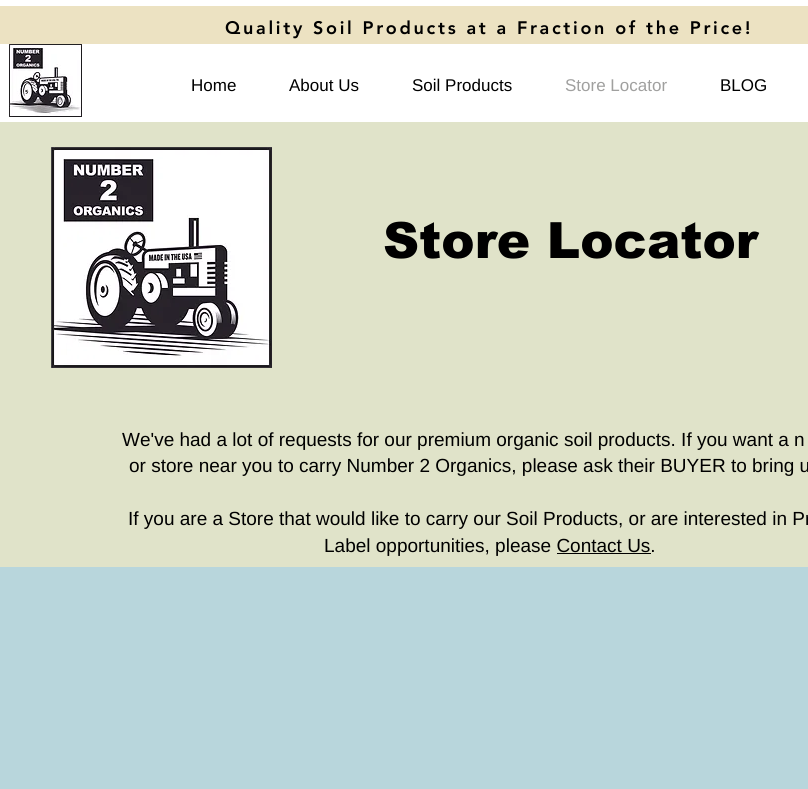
#include <cairo.h>
#include <math.h>
#include <stddef.h>


static void rgb(cairo_t *cr, int r, int g, int b)
{
	cairo_set_source_rgb(cr, r / 255.0, g / 255.0, b / 255.0);
}

static void face(cairo_t *cr, const char *family, double size, int italic, int bold)
{
	cairo_select_font_face(cr, family, italic ? CAIRO_FONT_SLANT_ITALIC : CAIRO_FONT_SLANT_NORMAL,
		bold ? CAIRO_FONT_WEIGHT_BOLD : CAIRO_FONT_WEIGHT_NORMAL);
	cairo_set_font_size(cr, size);
}

static void label(cairo_t *cr, double x, double y, const char *s)
{
	cairo_move_to(cr, x, y);
	cairo_show_text(cr, s);
}

static void tracked(cairo_t *cr, double x, double y, const char *s, double letter, double word)
{
	cairo_move_to(cr, x, y);
	while (*s) {
		char ch[5] = {0};
		int n = 0;
		do ch[n++] = *s++; while ((*s & 0xC0) == 0x80);
		cairo_show_text(cr, ch);
		cairo_rel_move_to(cr, letter + word * (*ch == ' '), 0);
	}
}

static void rect(cairo_t *cr, double x, double y, double w, double h)
{
	cairo_rectangle(cr, x, y, w, h);
	cairo_fill(cr);
}

static void image(cairo_t *cr, const char *path, double x, double y, double w, double h)
{
	cairo_surface_t *image = cairo_image_surface_create_from_png(path);
	cairo_save(cr);
	cairo_set_source_surface(cr, image, x, y);
	cairo_rectangle(cr, x, y, w, h);
	cairo_fill(cr);
	cairo_restore(cr);
	cairo_surface_destroy(image);
}

static void draw(cairo_t *cr) {
	rgb(cr, 255, 255, 255);
	cairo_paint(cr);
	rgb(cr, 236, 226, 194);
	rect(cr, 0, 6, 808, 38);
	face(cr, "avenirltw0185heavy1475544 Black", 18, 0, 0);
	rgb(cr, 0, 0, 0);
	tracked(cr, 225, 34, "Quality Soil Products at a Fraction of the Price!", 2.7, 0);
	image(cr, "image0.png", 9, 44, 73, 73);
	face(cr, "Liberation Sans", 17, 0, 0);
	label(cr, 191, 91, "Home");
	label(cr, 289, 91, "About Us");
	label(cr, 412, 91, "Soil Products");
	rgb(cr, 160, 160, 159);
	label(cr, 565, 91, "Store Locator");
	rgb(cr, 0, 0, 0);
	label(cr, 720, 91, "BLOG");
	rgb(cr, 224, 227, 201);
	rect(cr, 0, 122, 808, 445);
	image(cr, "image1.png", 51, 147, 221, 221);
	face(cr, "arial Black", 50, 0, 0);
	rgb(cr, 0, 0, 0);
	label(cr, 383, 258, "Store Locator");
	face(cr, "Liberation Sans", 19, 0, 0);
	label(cr, 122, 446, "We've had a lot of requests for our premium organic soil products. If you want a n");
	label(cr, 129, 472, "or store near you to carry Number 2 Organics, please ask their BUYER to bring u");
	label(cr, 128, 525, "If you are a Store that would like to carry our Soil Products, or are interested in Pr");
	label(cr, 324, 552, "Label opportunities, please Contact Us.");
	rect(cr, 557, 553, 94, 1);
	rgb(cr, 184, 214, 220);
	rect(cr, 0, 567, 808, 222);
}

int main(void) {
	cairo_surface_t *surface = cairo_image_surface_create(CAIRO_FORMAT_RGB24, 808, 789);
	cairo_t *cr = cairo_create(surface);
	cairo_font_options_t *options = cairo_font_options_create();
	cairo_font_options_set_hint_metrics(options, CAIRO_HINT_METRICS_OFF);
	cairo_font_options_set_hint_style(options, CAIRO_HINT_STYLE_NONE);
	cairo_set_font_options(cr, options);
	cairo_set_miter_limit(cr, 4);
	draw(cr);
	cairo_surface_write_to_png(surface, "render.png");
	cairo_font_options_destroy(options);
	cairo_destroy(cr);
	cairo_surface_destroy(surface);
	return 0;
}
